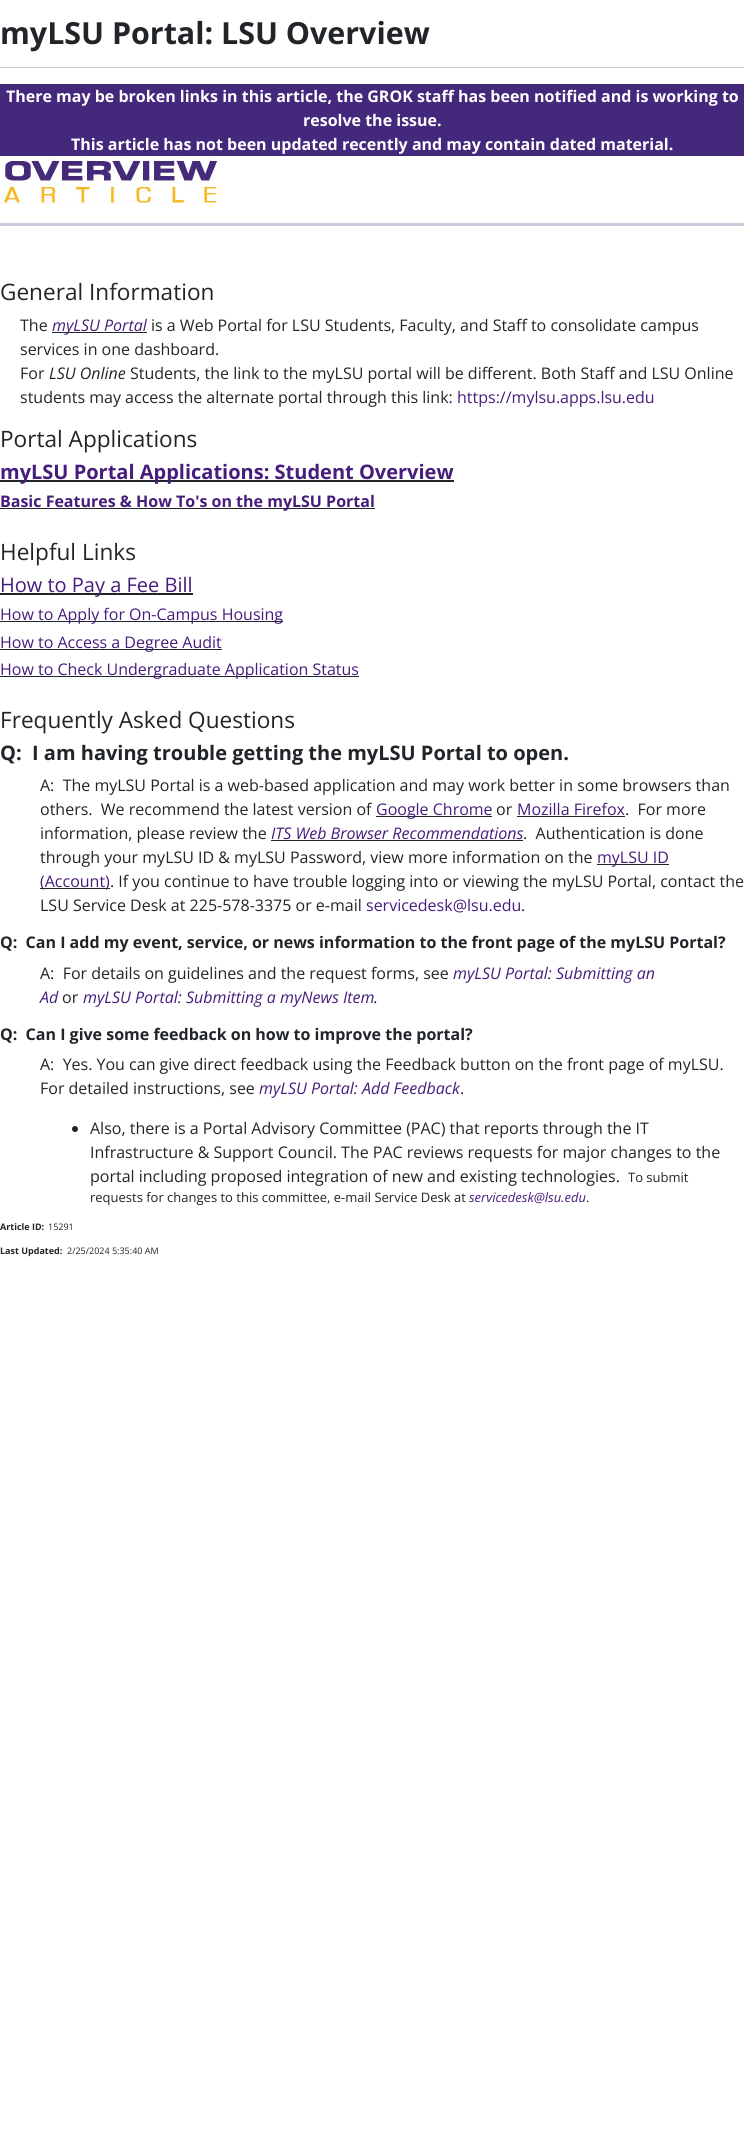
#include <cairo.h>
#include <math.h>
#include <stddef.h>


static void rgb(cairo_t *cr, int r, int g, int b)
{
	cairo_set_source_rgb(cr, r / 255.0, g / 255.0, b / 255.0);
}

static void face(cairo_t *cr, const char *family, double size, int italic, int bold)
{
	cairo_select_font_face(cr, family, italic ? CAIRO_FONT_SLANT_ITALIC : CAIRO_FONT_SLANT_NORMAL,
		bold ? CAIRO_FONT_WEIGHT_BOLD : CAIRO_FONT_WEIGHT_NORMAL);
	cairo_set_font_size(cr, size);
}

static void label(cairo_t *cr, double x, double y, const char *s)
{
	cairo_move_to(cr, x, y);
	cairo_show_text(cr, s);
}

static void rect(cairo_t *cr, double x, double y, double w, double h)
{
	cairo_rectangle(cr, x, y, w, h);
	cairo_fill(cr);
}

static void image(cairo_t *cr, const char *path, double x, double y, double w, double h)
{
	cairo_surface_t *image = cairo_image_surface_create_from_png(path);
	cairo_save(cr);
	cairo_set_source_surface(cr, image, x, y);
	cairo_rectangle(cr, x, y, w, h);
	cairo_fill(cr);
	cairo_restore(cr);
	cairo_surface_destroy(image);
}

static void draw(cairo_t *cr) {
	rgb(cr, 255, 255, 255);
	cairo_paint(cr);
	face(cr, "Open Sans", 30.4, 0, 1);
	rgb(cr, 33, 37, 41);
	label(cr, 0, 44, "myLSU Portal: LSU Overview");
	rgb(cr, 200, 201, 202);
	rect(cr, 0, 67, 744, 1);
	rgb(cr, 68, 40, 124);
	rect(cr, 0, 84, 744, 72);
	face(cr, "Open Sans", 16, 0, 1);
	rgb(cr, 255, 255, 255);
	label(cr, 6, 102, "There may be broken links in this article, the GROK staff has been notified and is working to");
	label(cr, 303, 126, "resolve the issue.");
	label(cr, 71, 150, "This article has not been updated recently and may contain dated material.");
	image(cr, "image0.png", 0, 156, 222, 51);
	rgb(cr, 208, 201, 222);
	rect(cr, 0, 223, 744, 3);
	face(cr, "Open Sans", 22.6, 0, 0);
	rgb(cr, 33, 37, 41);
	label(cr, 0, 300, "General Information");
	face(cr, "Open Sans", 16, 0, 0);
	label(cr, 20, 331, "The");
	rect(cr, 52, 332, 95, 1);
	face(cr, "Open Sans", 16, 1, 0);
	rgb(cr, 70, 29, 124);
	label(cr, 52, 331, "myLSU Portal");
	face(cr, "Open Sans", 16, 0, 0);
	rgb(cr, 33, 37, 41);
	label(cr, 151, 331, "is a Web Portal for LSU Students, Faculty, and Staff to consolidate campus");
	label(cr, 20, 355, "services in one dashboard.");
	label(cr, 20, 379, "For");
	face(cr, "Open Sans", 16, 1, 0);
	label(cr, 49, 379, "LSU Online");
	face(cr, "Open Sans", 16, 0, 0);
	label(cr, 130, 379, "Students, the link to the myLSU portal will be different. Both Staff and LSU Online");
	label(cr, 20, 403, "students may access the alternate portal through this link:");
	rgb(cr, 70, 29, 124);
	label(cr, 457, 403, "https://mylsu.apps.lsu.edu");
	face(cr, "Open Sans", 22.6, 0, 0);
	rgb(cr, 33, 37, 41);
	label(cr, 0, 447, "Portal Applications");
	rect(cr, 0, 480, 454, 2);
	face(cr, "Open Sans", 20, 0, 1);
	rgb(cr, 70, 29, 124);
	label(cr, 0, 479, "myLSU Portal Applications: Student Overview");
	rgb(cr, 33, 37, 41);
	rect(cr, 0, 508, 375, 1);
	face(cr, "Open Sans", 16, 0, 1);
	rgb(cr, 70, 29, 124);
	label(cr, 0, 507, "Basic Features & How To's on the myLSU Portal");
	face(cr, "Open Sans", 22.6, 0, 0);
	rgb(cr, 33, 37, 41);
	label(cr, 0, 560, "Helpful Links");
	rect(cr, 0, 593, 193, 2);
	face(cr, "Open Sans", 20, 0, 0);
	rgb(cr, 70, 29, 124);
	label(cr, 0, 592, "How to Pay a Fee Bill");
	rgb(cr, 33, 37, 41);
	rect(cr, 0, 621, 283, 1);
	face(cr, "Open Sans", 16, 0, 0);
	rgb(cr, 70, 29, 124);
	label(cr, 0, 620, "How to Apply for On-Campus Housing");
	rgb(cr, 33, 37, 41);
	rect(cr, 0, 649, 222, 1);
	rgb(cr, 70, 29, 124);
	label(cr, 0, 648, "How to Access a Degree Audit");
	rgb(cr, 33, 37, 41);
	rect(cr, 0, 676, 359, 1);
	rgb(cr, 70, 29, 124);
	label(cr, 0, 675, "How to Check Undergraduate Application Status");
	face(cr, "Open Sans", 22.6, 0, 0);
	rgb(cr, 33, 37, 41);
	label(cr, 0, 728, "Frequently Asked Questions");
	face(cr, "Open Sans", 20, 0, 1);
	label(cr, 0, 760, "Q:  I am having trouble getting the myLSU Portal to open.");
	face(cr, "Open Sans", 16, 0, 0);
	label(cr, 40, 791, "A:  The myLSU Portal is a web-based application and may work better in some browsers than");
	label(cr, 40, 815, "others.  We recommend the latest version of");
	rect(cr, 376, 816, 116, 1);
	rgb(cr, 70, 29, 124);
	label(cr, 376, 815, "Google Chrome");
	rgb(cr, 33, 37, 41);
	label(cr, 496, 815, "or");
	rgb(cr, 70, 29, 124);
	label(cr, 517, 815, "Mozilla Firefox");
	rgb(cr, 33, 37, 41);
	rect(cr, 517, 816, 108, 1);
	label(cr, 625, 815, ".  For more");
	label(cr, 40, 839, "information, please review the");
	face(cr, "Open Sans", 16, 1, 0);
	rgb(cr, 70, 29, 124);
	label(cr, 271, 839, "ITS Web Browser Recommendations");
	rgb(cr, 33, 37, 41);
	rect(cr, 271, 840, 252, 1);
	face(cr, "Open Sans", 16, 0, 0);
	label(cr, 523, 839, ".  Authentication is done");
	label(cr, 40, 863, "through your myLSU ID & myLSU Password, view more information on the");
	rect(cr, 597, 864, 72, 1);
	rgb(cr, 70, 29, 124);
	label(cr, 597, 863, "myLSU ID");
	rgb(cr, 33, 37, 41);
	rect(cr, 40, 888, 70, 1);
	rgb(cr, 70, 29, 124);
	label(cr, 40, 887, "(Account)");
	rgb(cr, 33, 37, 41);
	label(cr, 110, 887, ". If you continue to have trouble logging into or viewing the myLSU Portal, contact the");
	label(cr, 40, 911, "LSU Service Desk at 225-578-3375 or e-mail");
	rgb(cr, 70, 29, 124);
	label(cr, 366, 911, "servicedesk@lsu.edu");
	rgb(cr, 33, 37, 41);
	label(cr, 521, 911, ".");
	face(cr, "Open Sans", 16, 0, 1);
	label(cr, 0, 948, "Q:  Can I add my event, service, or news information to the front page of the myLSU Portal?");
	face(cr, "Open Sans", 16, 0, 0);
	label(cr, 40, 979, "A:  For details on guidelines and the request forms, see");
	face(cr, "Open Sans", 16, 1, 0);
	rgb(cr, 70, 29, 124);
	label(cr, 453, 979, "myLSU Portal: Submitting an");
	label(cr, 40, 1003, "Ad");
	face(cr, "Open Sans", 16, 0, 0);
	rgb(cr, 33, 37, 41);
	label(cr, 62, 1003, "or");
	face(cr, "Open Sans", 16, 1, 0);
	rgb(cr, 70, 29, 124);
	label(cr, 83, 1003, "myLSU Portal: Submitting a myNews Item");
	rgb(cr, 33, 37, 41);
	label(cr, 374, 1003, ".");
	face(cr, "Open Sans", 16, 0, 1);
	label(cr, 0, 1040, "Q:  Can I give some feedback on how to improve the portal?");
	face(cr, "Open Sans", 16, 0, 0);
	label(cr, 40, 1070, "A:  Yes. You can give direct feedback using the Feedback button on the front page of myLSU.");
	label(cr, 40, 1094, "For detailed instructions, see");
	face(cr, "Open Sans", 16, 1, 0);
	rgb(cr, 70, 29, 124);
	label(cr, 259, 1094, "myLSU Portal: Add Feedback");
	face(cr, "Open Sans", 16, 0, 0);
	rgb(cr, 33, 37, 41);
	label(cr, 460, 1094, ".");
	cairo_new_path(cr);
	cairo_arc(cr, 75, 1129, 3, 0, 2 * M_PI);
	cairo_fill(cr);
	label(cr, 90, 1134, "Also, there is a Portal Advisory Committee (PAC) that reports through the IT");
	label(cr, 90, 1158, "Infrastructure & Support Council. The PAC reviews requests for major changes to the");
	label(cr, 90, 1182, "portal including proposed integration of new and existing technologies.");
	face(cr, "Open Sans", 13, 0, 0);
	label(cr, 628, 1182, "To submit");
	label(cr, 90, 1202, "requests for changes to this committee, e-mail Service Desk at");
	face(cr, "Open Sans", 13, 1, 0);
	rgb(cr, 70, 29, 124);
	label(cr, 469, 1202, "servicedesk@lsu.edu");
	face(cr, "Open Sans", 13, 0, 0);
	rgb(cr, 33, 37, 41);
	label(cr, 586, 1202, ".");
	face(cr, "Open Sans", 9, 0, 1);
	label(cr, 0, 1230, "Article ID:");
	face(cr, "Open Sans", 9, 0, 0);
	label(cr, 48, 1230, "15291");
	face(cr, "Open Sans", 9, 0, 1);
	label(cr, 0, 1254, "Last Updated:");
	face(cr, "Open Sans", 9, 0, 0);
	label(cr, 67, 1254, "2/25/2024 5:35:40 AM");
}

int main(void) {
	cairo_surface_t *surface = cairo_image_surface_create(CAIRO_FORMAT_RGB24, 744, 2139);
	cairo_t *cr = cairo_create(surface);
	cairo_font_options_t *options = cairo_font_options_create();
	cairo_font_options_set_hint_metrics(options, CAIRO_HINT_METRICS_OFF);
	cairo_font_options_set_hint_style(options, CAIRO_HINT_STYLE_NONE);
	cairo_set_font_options(cr, options);
	cairo_set_miter_limit(cr, 4);
	draw(cr);
	cairo_surface_write_to_png(surface, "render.png");
	cairo_font_options_destroy(options);
	cairo_destroy(cr);
	cairo_surface_destroy(surface);
	return 0;
}
